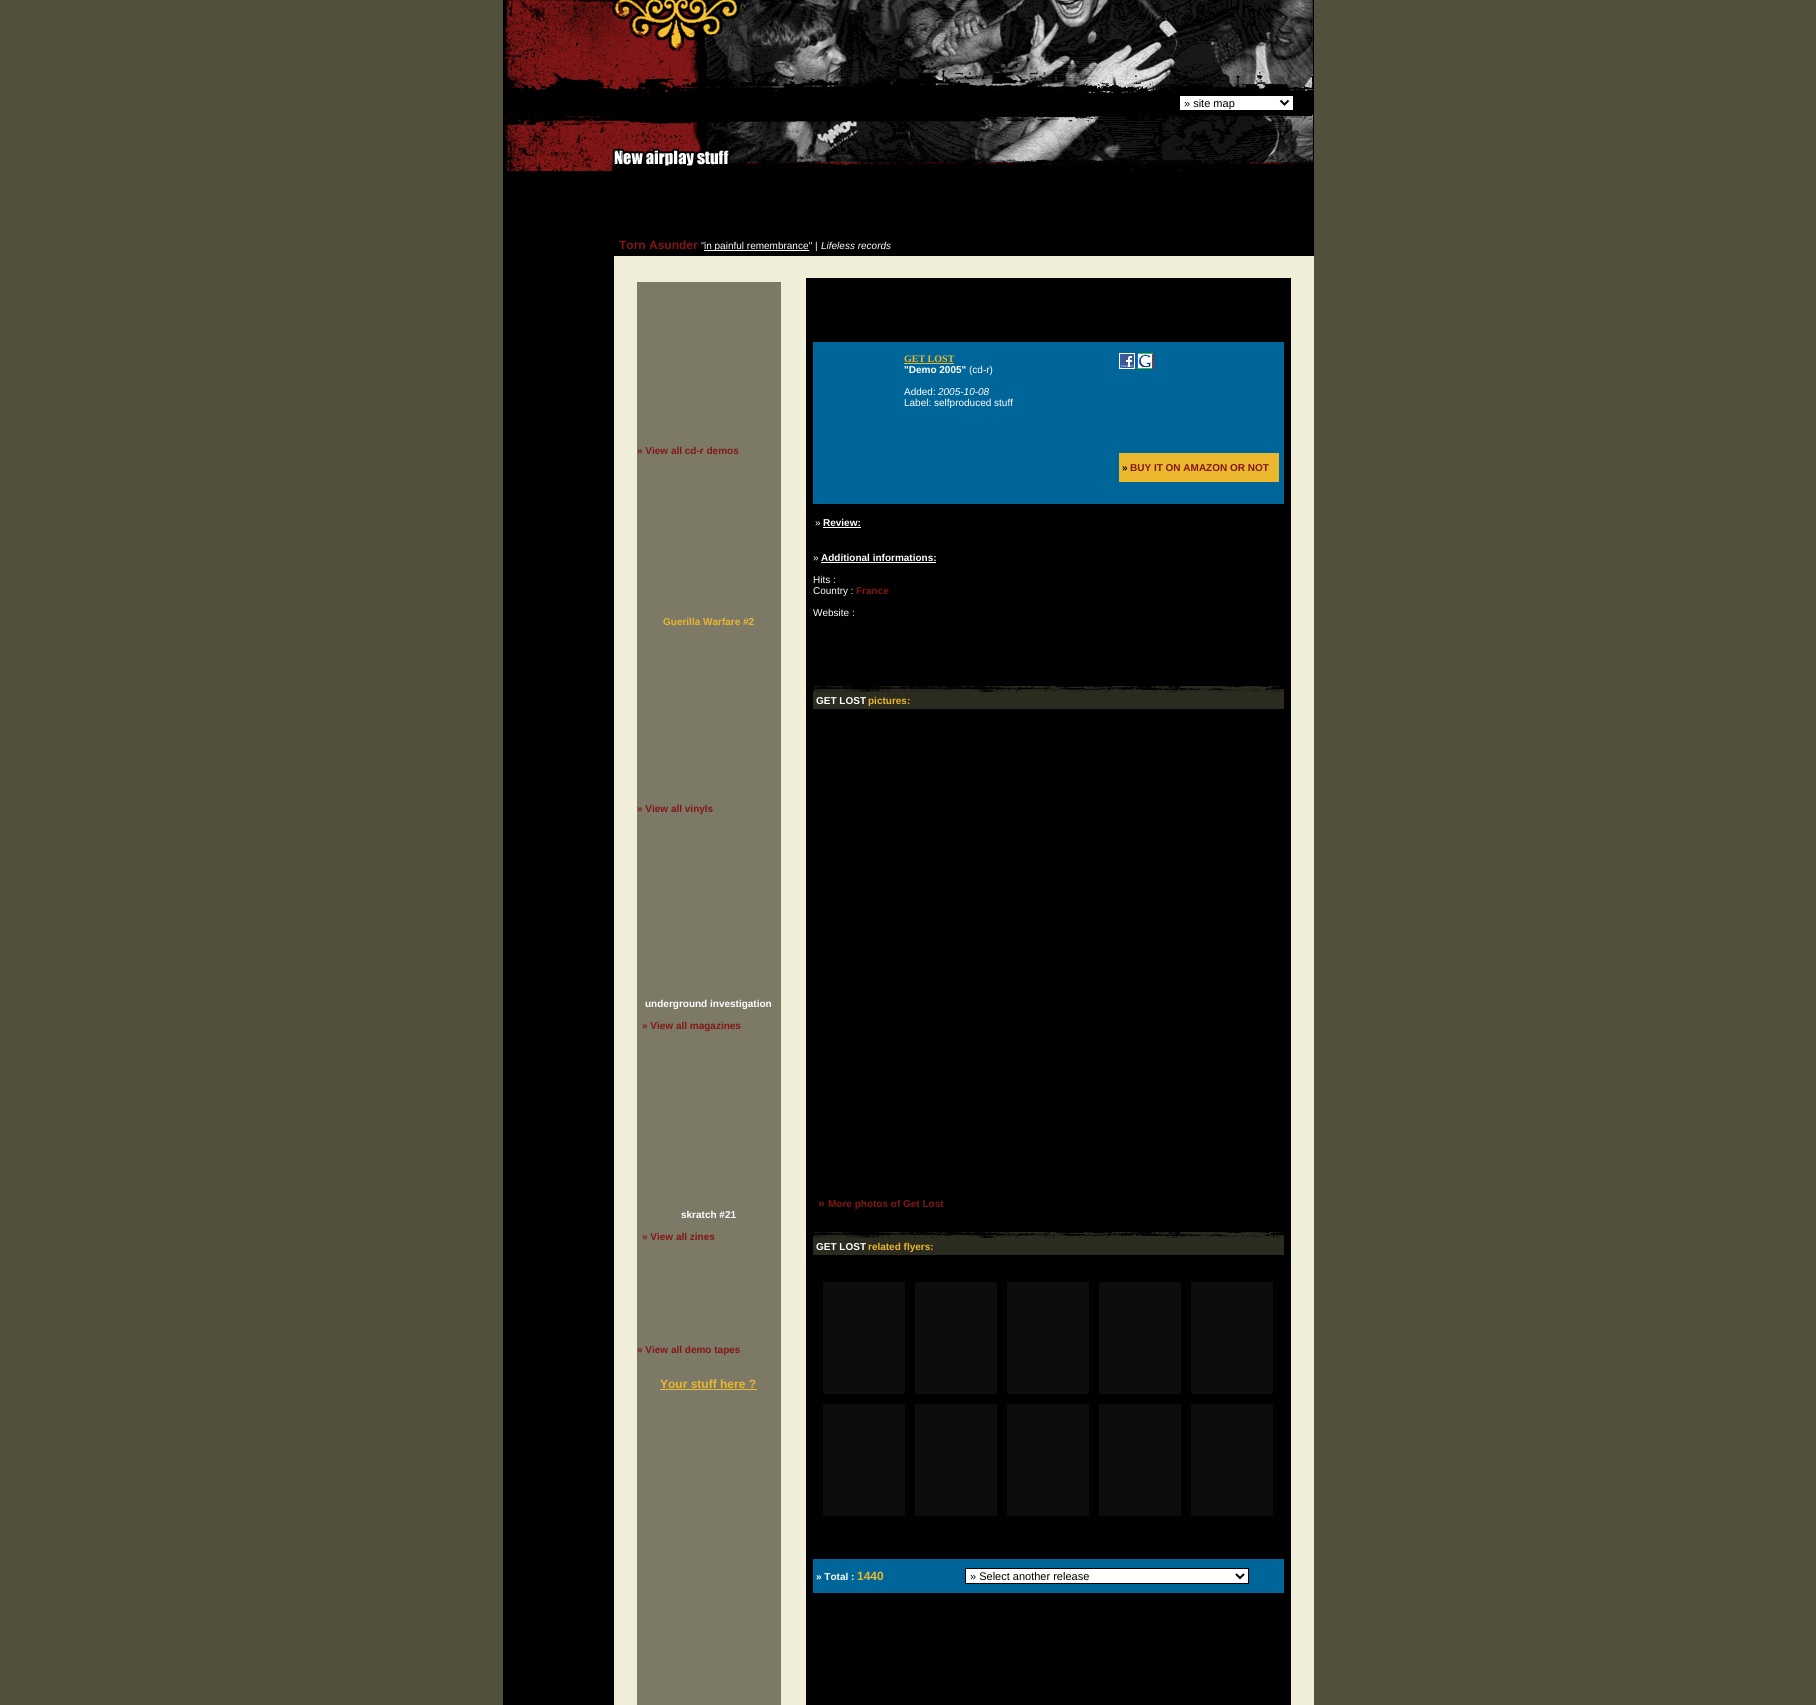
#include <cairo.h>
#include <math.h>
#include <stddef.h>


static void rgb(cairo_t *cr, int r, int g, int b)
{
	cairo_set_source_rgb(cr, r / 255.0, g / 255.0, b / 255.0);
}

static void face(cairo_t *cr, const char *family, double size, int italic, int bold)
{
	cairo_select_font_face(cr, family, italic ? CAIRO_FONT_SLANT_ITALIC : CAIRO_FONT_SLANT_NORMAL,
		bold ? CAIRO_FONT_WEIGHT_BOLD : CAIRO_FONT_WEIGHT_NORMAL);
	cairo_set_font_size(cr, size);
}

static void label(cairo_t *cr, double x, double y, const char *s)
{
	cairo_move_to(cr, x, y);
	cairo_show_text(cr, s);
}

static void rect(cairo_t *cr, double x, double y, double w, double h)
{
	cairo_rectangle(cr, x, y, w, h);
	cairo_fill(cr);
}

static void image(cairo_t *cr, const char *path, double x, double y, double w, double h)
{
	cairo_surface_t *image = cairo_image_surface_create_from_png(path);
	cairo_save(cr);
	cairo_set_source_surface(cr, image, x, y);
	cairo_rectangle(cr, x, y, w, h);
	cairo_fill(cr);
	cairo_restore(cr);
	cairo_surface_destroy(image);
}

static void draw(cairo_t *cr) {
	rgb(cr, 80, 80, 60);
	cairo_paint(cr);
	rgb(cr, 0, 0, 0);
	rect(cr, 503, 0, 811, 234);
	image(cr, "image0.png", 505, 0, 200, 51);
	image(cr, "image1.png", 705, 0, 608, 51);
	image(cr, "image2.png", 505, 51, 196, 41);
	image(cr, "image3.png", 705, 51, 608, 43);
	rgb(cr, 255, 255, 255);
	rect(cr, 1180, 96, 113, 14);
	cairo_new_path(cr);
	cairo_move_to(cr, 1280.5, 100.5);
	cairo_line_to(cr, 1284.5, 104.5);
	cairo_line_to(cr, 1288.5, 100.5);
	rgb(cr, 0, 0, 0);
	cairo_stroke(cr);
	face(cr, "Liberation Sans", 11, 0, 0);
	label(cr, 1184, 107, "» site map");
	image(cr, "image4.png", 505, 111, 196, 35);
	image(cr, "image5.png", 706, 111, 607, 35);
	image(cr, "image6.png", 505, 146, 200, 25);
	image(cr, "image7.png", 705, 146, 608, 25);
	rgb(cr, 240, 237, 216);
	rect(cr, 614, 256, 700, 1449);
	rgb(cr, 0, 0, 0);
	rect(cr, 503, 234, 111, 1471);
	rect(cr, 614, 234, 700, 22);
	face(cr, "Liberation Sans", 12, 0, 1);
	rgb(cr, 131, 22, 22);
	label(cr, 619, 249, "Torn Asunder");
	face(cr, "Liberation Sans", 10, 0, 0);
	rgb(cr, 255, 255, 255);
	label(cr, 701, 249, "''");
	rect(cr, 704, 250, 105, 1);
	label(cr, 704, 249, "in painful remembrance'' |");
	face(cr, "Liberation Sans", 10, 1, 0);
	label(cr, 821, 249, "Lifeless records");
	rgb(cr, 124, 121, 103);
	rect(cr, 637, 282, 144, 1423);
	face(cr, "Liberation Sans", 10, 0, 1);
	rgb(cr, 131, 22, 22);
	label(cr, 637, 454, "» View all cd-r demos");
	rgb(cr, 235, 184, 45);
	label(cr, 663, 625, "Guerilla Warfare #2");
	rgb(cr, 131, 22, 22);
	label(cr, 637, 812, "» View all vinyls");
	rgb(cr, 255, 255, 255);
	label(cr, 645, 1007, "underground investigation");
	rgb(cr, 131, 22, 22);
	label(cr, 642, 1029, "» View all magazines");
	rgb(cr, 255, 255, 255);
	label(cr, 681, 1218, "skratch #21");
	rgb(cr, 131, 22, 22);
	label(cr, 642, 1240, "» View all zines");
	label(cr, 637, 1353, "» View all demo tapes");
	face(cr, "Liberation Sans", 12, 0, 1);
	rgb(cr, 235, 184, 45);
	label(cr, 660, 1388, "Your stuff here ?");
	rect(cr, 660, 1389, 97, 1);
	rgb(cr, 0, 0, 0);
	rect(cr, 806, 278, 485, 1427);
	rgb(cr, 0, 102, 153);
	rect(cr, 813, 342, 471, 162);
	face(cr, "Liberation Serif", 10, 0, 1);
	rgb(cr, 235, 184, 45);
	label(cr, 904, 362, "GET LOST");
	rect(cr, 904, 363, 50, 1);
	face(cr, "Liberation Sans", 10, 0, 1);
	rgb(cr, 255, 255, 255);
	label(cr, 904, 373, "\"Demo 2005\"");
	face(cr, "Liberation Sans", 10, 0, 0);
	label(cr, 969, 373, "(cd-r)");
	label(cr, 904, 395, "Added:");
	face(cr, "Liberation Sans", 10, 1, 0);
	label(cr, 938, 395, "2005-10-08");
	face(cr, "Liberation Sans", 10, 0, 0);
	label(cr, 904, 406, "Label: selfproduced stuff");
	image(cr, "image8.png", 1119, 353, 16, 16);
	image(cr, "image9.png", 1137, 353, 16, 16);
	rgb(cr, 235, 184, 45);
	rect(cr, 1119, 453, 160, 29);
	face(cr, "Liberation Sans", 10, 0, 1);
	rgb(cr, 0, 0, 0);
	label(cr, 1122, 471, "»");
	rgb(cr, 131, 22, 22);
	label(cr, 1130, 471, "BUY IT ON AMAZON OR NOT");
	face(cr, "Liberation Sans", 10, 0, 0);
	rgb(cr, 255, 255, 255);
	label(cr, 815, 526, "»");
	face(cr, "Liberation Sans", 10, 0, 1);
	label(cr, 823, 526, "Review:");
	rect(cr, 823, 527, 38, 1);
	face(cr, "Liberation Sans", 10, 0, 0);
	label(cr, 813, 561, "»");
	face(cr, "Liberation Sans", 10, 0, 1);
	label(cr, 821, 561, "Additional informations:");
	rect(cr, 821, 562, 115, 1);
	face(cr, "Liberation Sans", 10, 0, 0);
	label(cr, 813, 583, "Hits :");
	label(cr, 813, 594, "Country :");
	face(cr, "Liberation Sans", 10, 0, 1);
	rgb(cr, 131, 22, 22);
	label(cr, 856, 594, "France");
	face(cr, "Liberation Sans", 10, 0, 0);
	rgb(cr, 255, 255, 255);
	label(cr, 813, 616, "Website :");
	image(cr, "image10.png", 813, 686, 471, 6);
	rgb(cr, 43, 43, 32);
	rect(cr, 813, 692, 471, 17);
	face(cr, "Liberation Sans", 10, 0, 1);
	rgb(cr, 255, 255, 255);
	label(cr, 816, 704, "GET LOST");
	rgb(cr, 235, 184, 45);
	label(cr, 868, 704, "pictures:");
	face(cr, "Liberation Sans", 12, 0, 1);
	rgb(cr, 131, 22, 22);
	label(cr, 818, 1207, "»");
	face(cr, "Liberation Sans", 10, 0, 1);
	label(cr, 828, 1207, "More photos of Get Lost");
	image(cr, "image10.png", 813, 1232, 471, 6);
	rgb(cr, 43, 43, 32);
	rect(cr, 813, 1238, 471, 17);
	rgb(cr, 255, 255, 255);
	label(cr, 816, 1250, "GET LOST");
	rgb(cr, 235, 184, 45);
	label(cr, 868, 1250, "related flyers:");
	rgb(cr, 12, 12, 12);
	rect(cr, 823, 1282, 82, 112);
	rect(cr, 915, 1282, 82, 112);
	rect(cr, 1007, 1282, 82, 112);
	rect(cr, 1099, 1282, 82, 112);
	rect(cr, 1191, 1282, 82, 112);
	rect(cr, 823, 1404, 82, 112);
	rect(cr, 915, 1404, 82, 112);
	rect(cr, 1007, 1404, 82, 112);
	rect(cr, 1099, 1404, 82, 112);
	rect(cr, 1191, 1404, 82, 112);
	rgb(cr, 0, 102, 153);
	rect(cr, 813, 1559, 471, 6);
	rect(cr, 813, 1565, 471, 28);
	rgb(cr, 255, 255, 255);
	label(cr, 816, 1580, "» Total :");
	face(cr, "Liberation Sans", 12, 0, 1);
	rgb(cr, 235, 184, 45);
	label(cr, 857, 1580, "1440");
	rgb(cr, 255, 255, 255);
	cairo_rectangle(cr, 965.5, 1568.5, 283, 15);
	cairo_fill_preserve(cr);
	rgb(cr, 0, 0, 0);
	cairo_set_line_width(cr, 1);
	cairo_stroke(cr);
	cairo_new_path(cr);
	cairo_move_to(cr, 1236, 1574);
	cairo_line_to(cr, 1240, 1578);
	cairo_line_to(cr, 1244, 1574);
	cairo_set_line_width(cr, 2);
	cairo_stroke(cr);
	face(cr, "Liberation Sans", 11, 0, 0);
	label(cr, 970, 1580, "» Select another release");
}

int main(void) {
	cairo_surface_t *surface = cairo_image_surface_create(CAIRO_FORMAT_RGB24, 1816, 1705);
	cairo_t *cr = cairo_create(surface);
	cairo_font_options_t *options = cairo_font_options_create();
	cairo_font_options_set_hint_metrics(options, CAIRO_HINT_METRICS_OFF);
	cairo_font_options_set_hint_style(options, CAIRO_HINT_STYLE_NONE);
	cairo_set_font_options(cr, options);
	cairo_set_miter_limit(cr, 4);
	draw(cr);
	cairo_surface_write_to_png(surface, "render.png");
	cairo_font_options_destroy(options);
	cairo_destroy(cr);
	cairo_surface_destroy(surface);
	return 0;
}
